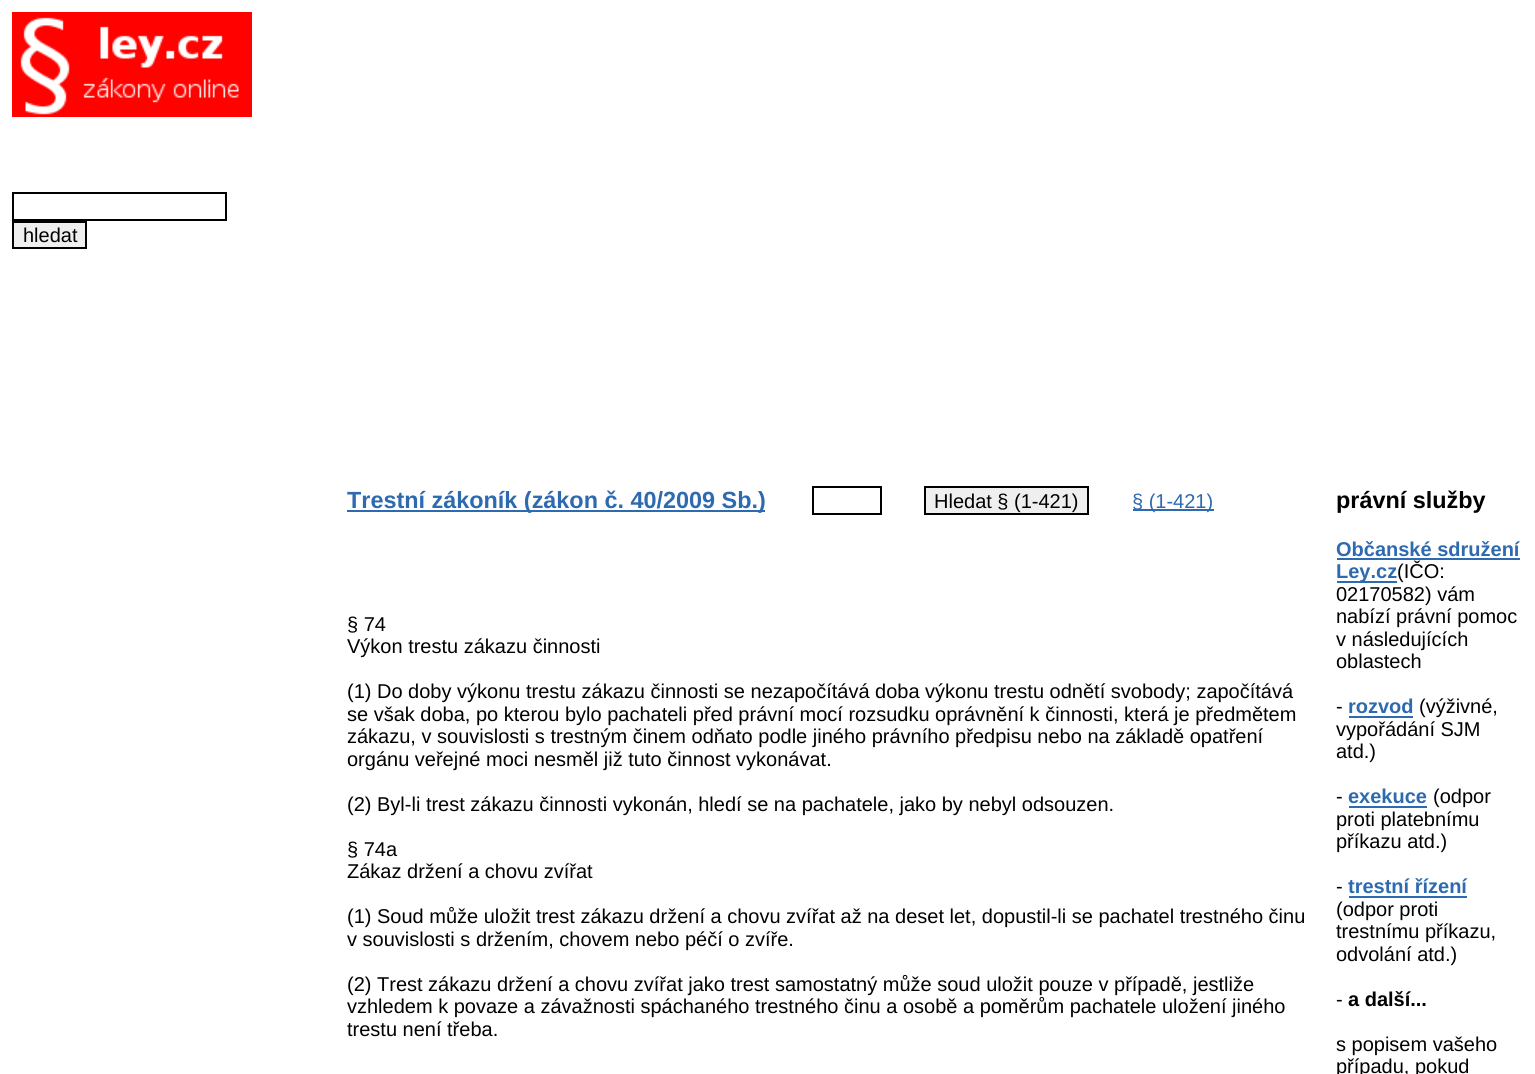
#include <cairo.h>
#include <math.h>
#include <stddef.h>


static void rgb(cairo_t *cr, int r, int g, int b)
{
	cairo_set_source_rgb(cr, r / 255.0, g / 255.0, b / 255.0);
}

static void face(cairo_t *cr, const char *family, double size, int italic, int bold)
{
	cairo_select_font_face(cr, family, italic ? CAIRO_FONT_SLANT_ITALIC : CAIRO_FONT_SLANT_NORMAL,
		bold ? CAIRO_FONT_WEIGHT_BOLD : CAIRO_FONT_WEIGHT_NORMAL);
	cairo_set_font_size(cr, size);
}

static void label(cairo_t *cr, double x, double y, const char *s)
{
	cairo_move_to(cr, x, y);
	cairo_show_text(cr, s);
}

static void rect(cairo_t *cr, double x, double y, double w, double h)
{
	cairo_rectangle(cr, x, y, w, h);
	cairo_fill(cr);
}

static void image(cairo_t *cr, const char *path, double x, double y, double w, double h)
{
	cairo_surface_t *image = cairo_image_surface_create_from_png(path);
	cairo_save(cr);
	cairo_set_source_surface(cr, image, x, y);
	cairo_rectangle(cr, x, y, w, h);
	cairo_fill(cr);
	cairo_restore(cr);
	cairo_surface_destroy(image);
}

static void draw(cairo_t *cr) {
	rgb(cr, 255, 255, 255);
	cairo_paint(cr);
	image(cr, "image0.png", 12, 12, 240, 105);
	cairo_rectangle(cr, 13, 193, 213, 27);
	rgb(cr, 0, 0, 0);
	cairo_stroke(cr);
	rgb(cr, 239, 239, 239);
	cairo_rectangle(cr, 13, 222, 73, 26);
	cairo_fill_preserve(cr);
	rgb(cr, 0, 0, 0);
	cairo_stroke(cr);
	face(cr, "Liberation Sans", 20, 0, 0);
	label(cr, 23, 242, "hledat");
	rgb(cr, 45, 106, 175);
	rect(cr, 347, 510, 418, 2);
	face(cr, "Liberation Sans", 23.4, 0, 1);
	label(cr, 347, 508, "Trestní zákoník (zákon č. 40/2009 Sb.)");
	cairo_rectangle(cr, 813, 487, 68, 27);
	rgb(cr, 0, 0, 0);
	cairo_stroke(cr);
	rgb(cr, 239, 239, 239);
	cairo_rectangle(cr, 925, 487, 163, 27);
	cairo_fill_preserve(cr);
	rgb(cr, 0, 0, 0);
	cairo_stroke(cr);
	face(cr, "Liberation Sans", 20, 0, 0);
	label(cr, 934, 508, "Hledat § (1-421)");
	rgb(cr, 45, 106, 175);
	rect(cr, 1133, 509, 81, 2);
	label(cr, 1132, 508, "§ (1-421)");
	rgb(cr, 0, 0, 0);
	label(cr, 347, 631, "§ 74");
	label(cr, 347, 653, "Výkon trestu zákazu činnosti");
	label(cr, 347, 698, "(1) Do doby výkonu trestu zákazu činnosti se nezapočítává doba výkonu trestu odnětí svobody; započítává");
	label(cr, 347, 721, "se však doba, po kterou bylo pachateli před právní mocí rozsudku oprávnění k činnosti, která je předmětem");
	label(cr, 347, 743, "zákazu, v souvislosti s trestným činem odňato podle jiného právního předpisu nebo na základě opatření");
	label(cr, 347, 766, "orgánu veřejné moci nesměl již tuto činnost vykonávat.");
	label(cr, 347, 811, "(2) Byl-li trest zákazu činnosti vykonán, hledí se na pachatele, jako by nebyl odsouzen.");
	label(cr, 347, 856, "§ 74a");
	label(cr, 347, 878, "Zákaz držení a chovu zvířat");
	label(cr, 347, 923, "(1) Soud může uložit trest zákazu držení a chovu zvířat až na deset let, dopustil-li se pachatel trestného činu");
	label(cr, 347, 946, "v souvislosti s držením, chovem nebo péčí o zvíře.");
	label(cr, 347, 991, "(2) Trest zákazu držení a chovu zvířat jako trest samostatný může soud uložit pouze v případě, jestliže");
	label(cr, 347, 1013, "vzhledem k povaze a závažnosti spáchaného trestného činu a osobě a poměrům pachatele uložení jiného");
	label(cr, 347, 1036, "trestu není třeba.");
	face(cr, "Liberation Sans", 23.4, 0, 1);
	label(cr, 1336, 508, "právní služby");
	face(cr, "Liberation Sans", 20, 0, 1);
	rgb(cr, 45, 106, 175);
	label(cr, 1336, 556, "Občanské sdružení");
	rect(cr, 1337, 558, 183, 2);
	rect(cr, 1337, 581, 60, 2);
	label(cr, 1336, 578, "Ley.cz");
	face(cr, "Liberation Sans", 20, 0, 0);
	rgb(cr, 0, 0, 0);
	label(cr, 1397, 578, "(IČO:");
	label(cr, 1336, 601, "02170582) vám");
	label(cr, 1336, 623, "nabízí právní pomoc");
	label(cr, 1336, 646, "v následujících");
	label(cr, 1336, 668, "oblastech");
	label(cr, 1336, 713, "-");
	face(cr, "Liberation Sans", 20, 0, 1);
	rgb(cr, 45, 106, 175);
	label(cr, 1348, 713, "rozvod");
	rect(cr, 1349, 716, 64, 2);
	face(cr, "Liberation Sans", 20, 0, 0);
	rgb(cr, 0, 0, 0);
	label(cr, 1419, 713, "(výživné,");
	label(cr, 1336, 736, "vypořádání SJM");
	label(cr, 1336, 758, "atd.)");
	label(cr, 1336, 803, "-");
	face(cr, "Liberation Sans", 20, 0, 1);
	rgb(cr, 45, 106, 175);
	label(cr, 1348, 803, "exekuce");
	rect(cr, 1349, 806, 78, 2);
	face(cr, "Liberation Sans", 20, 0, 0);
	rgb(cr, 0, 0, 0);
	label(cr, 1433, 803, "(odpor");
	label(cr, 1336, 826, "proti platebnímu");
	label(cr, 1336, 848, "příkazu atd.)");
	label(cr, 1336, 893, "-");
	face(cr, "Liberation Sans", 20, 0, 1);
	rgb(cr, 45, 106, 175);
	label(cr, 1348, 893, "trestní řízení");
	rect(cr, 1349, 896, 118, 2);
	face(cr, "Liberation Sans", 20, 0, 0);
	rgb(cr, 0, 0, 0);
	label(cr, 1336, 916, "(odpor proti");
	label(cr, 1336, 938, "trestnímu příkazu,");
	label(cr, 1336, 961, "odvolání atd.)");
	label(cr, 1336, 1006, "-");
	face(cr, "Liberation Sans", 20, 0, 1);
	label(cr, 1348, 1006, "a další...");
	face(cr, "Liberation Sans", 20, 0, 0);
	label(cr, 1336, 1051, "s popisem vašeho");
	label(cr, 1336, 1073, "případu, pokud");
}

int main(void) {
	cairo_surface_t *surface = cairo_image_surface_create(CAIRO_FORMAT_RGB24, 1535, 1074);
	cairo_t *cr = cairo_create(surface);
	cairo_font_options_t *options = cairo_font_options_create();
	cairo_font_options_set_hint_metrics(options, CAIRO_HINT_METRICS_OFF);
	cairo_font_options_set_hint_style(options, CAIRO_HINT_STYLE_NONE);
	cairo_set_font_options(cr, options);
	cairo_set_miter_limit(cr, 4);
	draw(cr);
	cairo_surface_write_to_png(surface, "render.png");
	cairo_font_options_destroy(options);
	cairo_destroy(cr);
	cairo_surface_destroy(surface);
	return 0;
}
